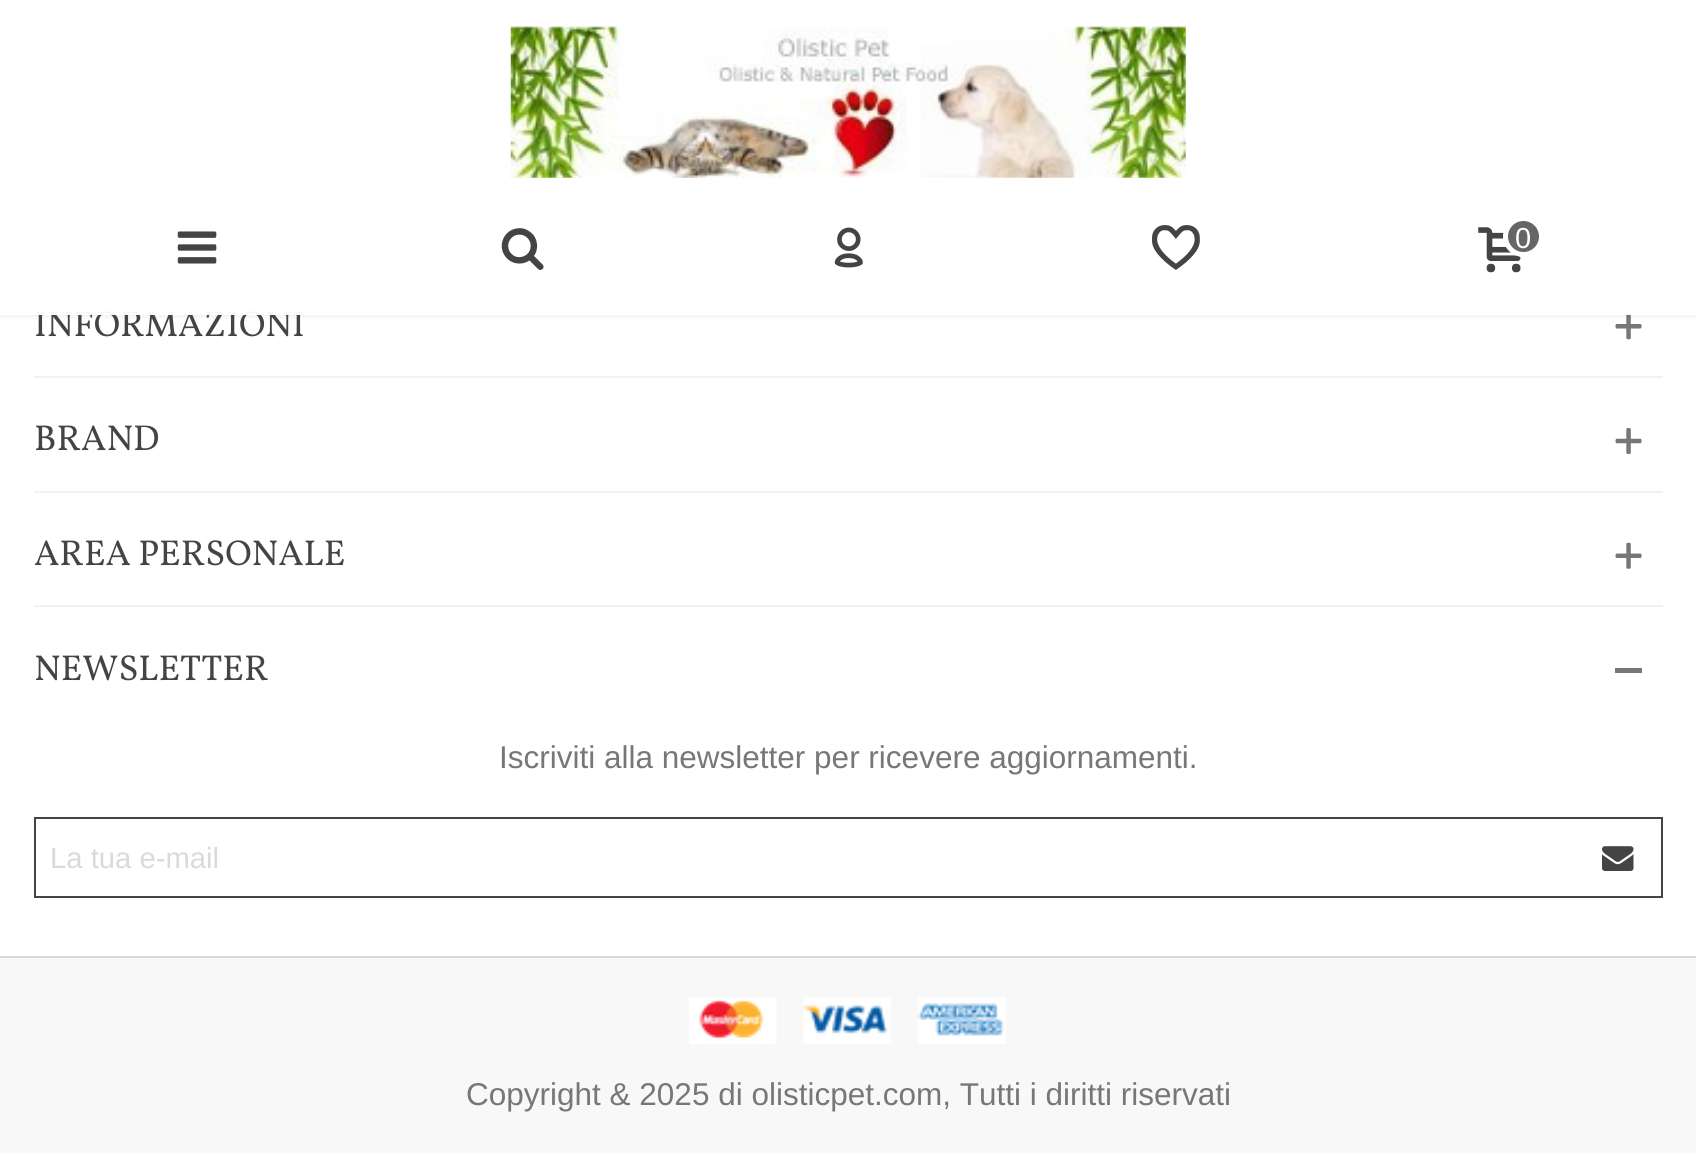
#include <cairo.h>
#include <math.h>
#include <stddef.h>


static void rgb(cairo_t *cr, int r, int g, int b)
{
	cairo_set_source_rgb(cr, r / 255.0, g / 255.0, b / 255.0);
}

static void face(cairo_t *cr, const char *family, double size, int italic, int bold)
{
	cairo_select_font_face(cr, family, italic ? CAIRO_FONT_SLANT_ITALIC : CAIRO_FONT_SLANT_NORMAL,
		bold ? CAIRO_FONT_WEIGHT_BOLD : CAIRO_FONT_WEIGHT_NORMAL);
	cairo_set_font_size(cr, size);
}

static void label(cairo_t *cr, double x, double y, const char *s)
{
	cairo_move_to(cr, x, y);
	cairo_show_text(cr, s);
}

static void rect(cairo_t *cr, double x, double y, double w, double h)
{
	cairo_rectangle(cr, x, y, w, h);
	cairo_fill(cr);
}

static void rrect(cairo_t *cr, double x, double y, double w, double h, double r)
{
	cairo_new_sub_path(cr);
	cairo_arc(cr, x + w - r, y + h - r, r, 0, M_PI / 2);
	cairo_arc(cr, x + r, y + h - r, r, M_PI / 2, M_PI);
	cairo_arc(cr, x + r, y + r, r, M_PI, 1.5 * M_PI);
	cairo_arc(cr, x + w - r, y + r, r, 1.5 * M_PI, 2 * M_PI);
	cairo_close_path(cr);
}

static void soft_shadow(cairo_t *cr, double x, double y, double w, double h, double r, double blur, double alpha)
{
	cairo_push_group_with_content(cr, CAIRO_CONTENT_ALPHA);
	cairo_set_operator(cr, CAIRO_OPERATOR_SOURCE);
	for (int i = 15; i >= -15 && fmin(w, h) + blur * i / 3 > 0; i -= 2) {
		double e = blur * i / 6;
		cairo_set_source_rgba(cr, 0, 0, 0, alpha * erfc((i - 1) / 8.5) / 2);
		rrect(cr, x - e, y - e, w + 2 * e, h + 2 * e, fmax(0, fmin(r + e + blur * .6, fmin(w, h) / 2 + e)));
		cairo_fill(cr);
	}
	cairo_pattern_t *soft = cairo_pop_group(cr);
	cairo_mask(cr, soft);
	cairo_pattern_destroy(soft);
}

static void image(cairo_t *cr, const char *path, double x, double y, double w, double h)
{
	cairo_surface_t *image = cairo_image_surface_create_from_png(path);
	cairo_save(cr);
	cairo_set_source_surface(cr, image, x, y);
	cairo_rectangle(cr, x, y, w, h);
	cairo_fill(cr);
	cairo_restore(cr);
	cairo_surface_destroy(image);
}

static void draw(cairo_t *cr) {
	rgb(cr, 255, 255, 255);
	cairo_paint(cr);
	image(cr, "image6.png", 1615, 313, 27, 27);
	cairo_save(cr);
	cairo_rectangle(cr, 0, 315, 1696, 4);
	cairo_clip(cr);
	rgb(cr, 0, 0, 0);
	soft_shadow(cr, 0, 0, 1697, 315, 0, 4.5, 0.1);
	cairo_restore(cr);
	face(cr, "Vollkorn", 36, 0, 0);
	rgb(cr, 68, 68, 68);
	label(cr, 34, 336, "INFORMAZIONI");
	cairo_set_source_rgba(cr, 1, 1, 1, 0.95);
	rect(cr, 35, 311, 1596, 4);
	image(cr, "image0.png", 510, 26, 676, 152);
	image(cr, "image1.png", 177, 231, 40, 33);
	image(cr, "image2.png", 501, 228, 43, 42);
	image(cr, "image3.png", 834, 227, 29, 41);
	image(cr, "image4.png", 1152, 225, 48, 45);
	image(cr, "image5.png", 1478, 227, 43, 46);
	rgb(cr, 102, 102, 102);
	cairo_arc(cr, 1523.5, 236.5, 18, 0, 2 * M_PI);
	cairo_fill_preserve(cr);
	rgb(cr, 255, 255, 255);
	cairo_set_line_width(cr, 5);
	cairo_stroke(cr);
	face(cr, "Liberation Sans", 29, 0, 0);
	label(cr, 1515, 248, "0");
	rgb(cr, 242, 242, 242);
	rect(cr, 34, 376, 1629, 2);
	rect(cr, 34, 491, 1629, 2);
	face(cr, "Vollkorn", 36, 0, 0);
	rgb(cr, 68, 68, 68);
	label(cr, 34, 450, "BRAND");
	image(cr, "image7.png", 1615, 428, 27, 26);
	rgb(cr, 242, 242, 242);
	rect(cr, 34, 605, 1629, 2);
	rgb(cr, 68, 68, 68);
	label(cr, 34, 565, "AREA PERSONALE");
	image(cr, "image8.png", 1615, 542, 27, 27);
	label(cr, 34, 680, "NEWSLETTER");
	rgb(cr, 119, 119, 119);
	rect(cr, 1615, 668, 27, 5);
	face(cr, "Liberation Sans", 31.5, 0, 0);
	label(cr, 499, 768, "Iscriviti alla newsletter per ricevere aggiornamenti.");
	cairo_rectangle(cr, 35, 818, 1627, 79);
	rgb(cr, 68, 68, 68);
	cairo_set_line_width(cr, 2);
	cairo_stroke(cr);
	face(cr, "Liberation Sans", 29.25, 0, 0);
	rgb(cr, 218, 218, 218);
	label(cr, 50, 868, "La tua e-mail");
	image(cr, "image9.png", 1602, 846, 32, 25);
	rgb(cr, 248, 248, 248);
	rect(cr, 0, 958, 1696, 195);
	rgb(cr, 217, 217, 217);
	rect(cr, 0, 956, 1696, 2);
	image(cr, "image10.png", 689, 997, 317, 47);
	face(cr, "Liberation Sans", 31.5, 0, 0);
	rgb(cr, 119, 119, 119);
	label(cr, 466, 1105, "Copyright & 2025 di olisticpet.com, Tutti i diritti riservati");
}

int main(void) {
	cairo_surface_t *surface = cairo_image_surface_create(CAIRO_FORMAT_RGB24, 1696, 1153);
	cairo_t *cr = cairo_create(surface);
	cairo_font_options_t *options = cairo_font_options_create();
	cairo_font_options_set_hint_metrics(options, CAIRO_HINT_METRICS_OFF);
	cairo_font_options_set_hint_style(options, CAIRO_HINT_STYLE_NONE);
	cairo_set_font_options(cr, options);
	cairo_set_miter_limit(cr, 4);
	draw(cr);
	cairo_surface_write_to_png(surface, "render.png");
	cairo_font_options_destroy(options);
	cairo_destroy(cr);
	cairo_surface_destroy(surface);
	return 0;
}
